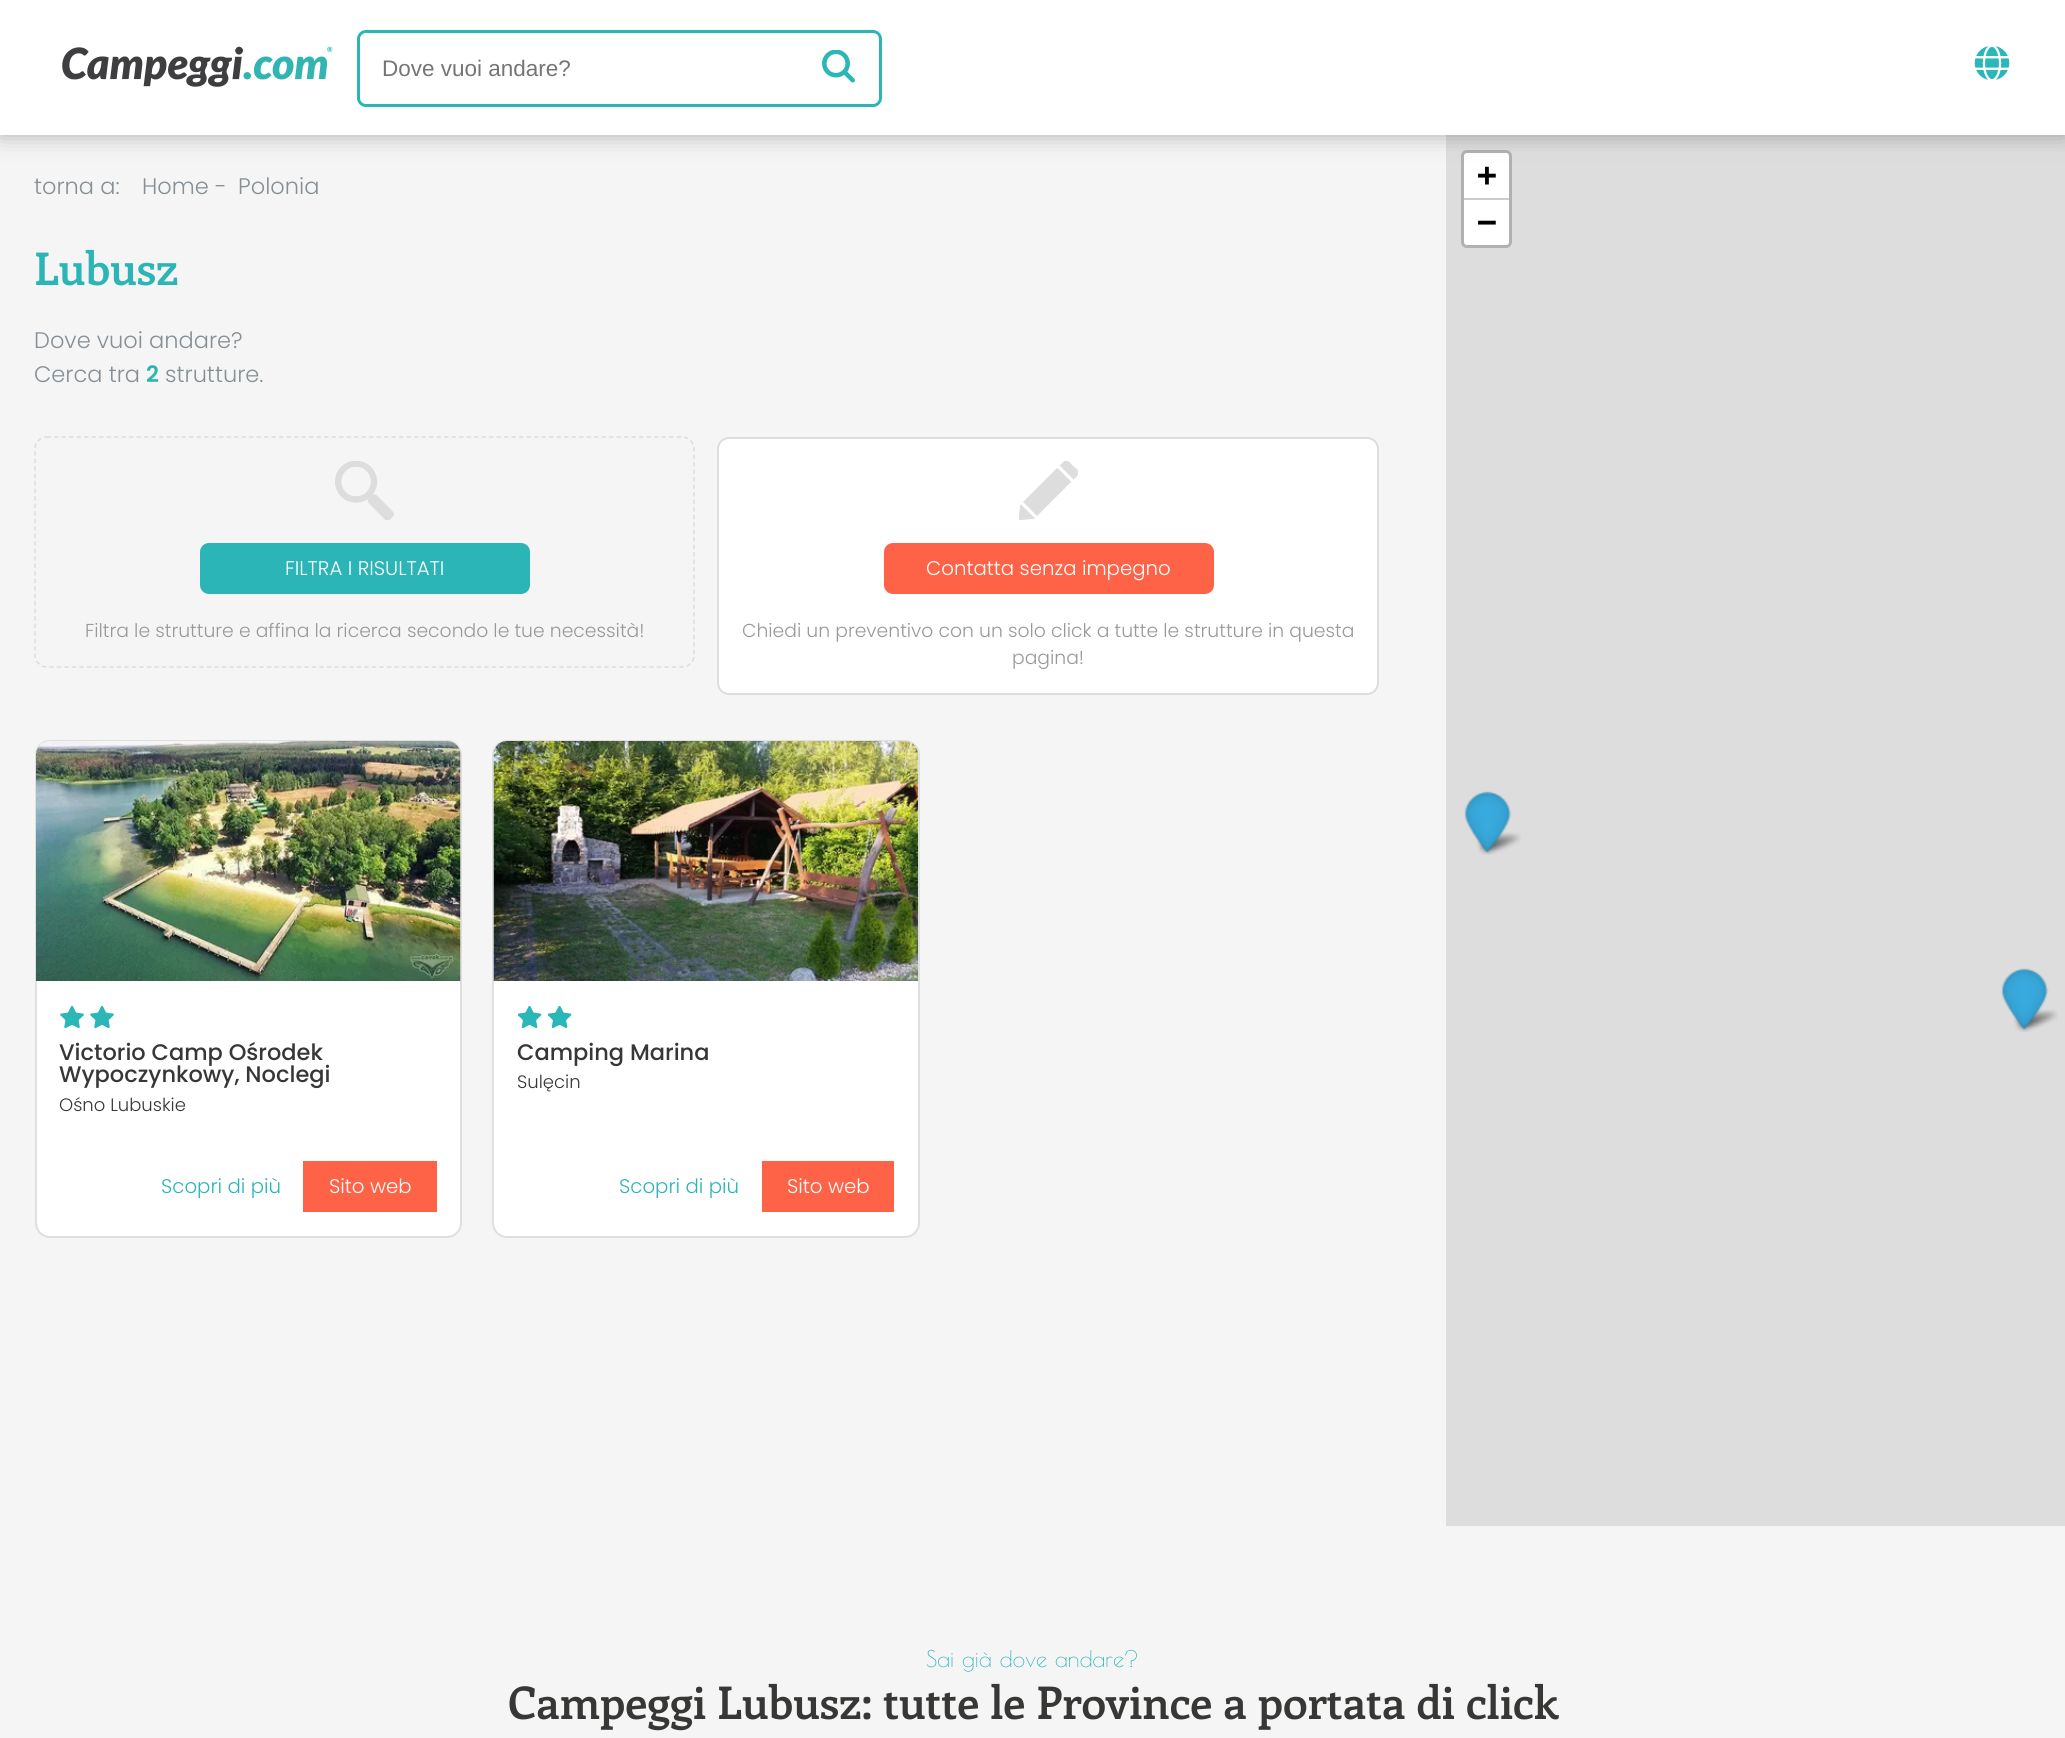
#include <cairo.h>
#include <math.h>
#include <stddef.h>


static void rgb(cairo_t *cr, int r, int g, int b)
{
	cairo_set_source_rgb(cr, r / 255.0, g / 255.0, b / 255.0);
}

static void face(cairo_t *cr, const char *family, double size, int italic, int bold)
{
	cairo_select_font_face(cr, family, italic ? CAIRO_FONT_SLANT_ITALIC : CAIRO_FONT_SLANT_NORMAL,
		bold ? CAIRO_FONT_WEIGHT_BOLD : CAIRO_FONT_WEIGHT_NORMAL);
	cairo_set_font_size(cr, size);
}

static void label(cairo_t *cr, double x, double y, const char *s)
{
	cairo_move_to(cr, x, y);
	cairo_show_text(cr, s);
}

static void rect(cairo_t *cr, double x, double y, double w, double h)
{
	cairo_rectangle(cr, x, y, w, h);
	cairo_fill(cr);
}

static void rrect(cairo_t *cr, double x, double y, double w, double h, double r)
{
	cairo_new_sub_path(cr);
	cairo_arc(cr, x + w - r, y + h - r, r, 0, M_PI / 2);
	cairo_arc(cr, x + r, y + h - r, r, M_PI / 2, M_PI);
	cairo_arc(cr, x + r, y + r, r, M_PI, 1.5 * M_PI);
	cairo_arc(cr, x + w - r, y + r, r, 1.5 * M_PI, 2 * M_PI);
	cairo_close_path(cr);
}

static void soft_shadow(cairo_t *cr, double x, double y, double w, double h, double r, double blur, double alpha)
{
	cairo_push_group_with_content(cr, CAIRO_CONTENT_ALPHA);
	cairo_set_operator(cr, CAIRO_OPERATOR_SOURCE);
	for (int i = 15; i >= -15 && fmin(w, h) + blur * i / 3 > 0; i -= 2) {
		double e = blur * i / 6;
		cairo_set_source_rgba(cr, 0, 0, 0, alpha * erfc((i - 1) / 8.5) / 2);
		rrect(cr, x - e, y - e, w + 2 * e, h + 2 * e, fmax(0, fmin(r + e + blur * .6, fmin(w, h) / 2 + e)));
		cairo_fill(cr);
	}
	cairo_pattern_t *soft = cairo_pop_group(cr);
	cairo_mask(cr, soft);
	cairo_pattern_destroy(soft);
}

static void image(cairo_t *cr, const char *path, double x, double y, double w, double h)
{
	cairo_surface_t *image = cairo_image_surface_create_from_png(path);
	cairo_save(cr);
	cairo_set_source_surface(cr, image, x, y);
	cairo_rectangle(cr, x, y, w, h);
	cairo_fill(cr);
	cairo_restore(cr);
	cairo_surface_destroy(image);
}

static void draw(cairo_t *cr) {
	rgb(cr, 245, 245, 245);
	cairo_paint(cr);
	rgb(cr, 221, 221, 221);
	rect(cr, 1446, 135, 619, 1391);
	rrect(cr, 1462.5, 151.5, 48, 95, 4.5);
	rgb(cr, 177, 177, 177);
	cairo_set_line_width(cr, 3);
	cairo_stroke(cr);
	rgb(cr, 255, 255, 255);
	cairo_new_path(cr);
	cairo_move_to(cr, 1467, 153);
	cairo_line_to(cr, 1506, 153);
	cairo_curve_to(cr, 1507.5, 153, 1509, 154.5, 1509, 156);
	cairo_line_to(cr, 1509, 200);
	cairo_line_to(cr, 1464, 200);
	cairo_line_to(cr, 1464, 156);
	cairo_curve_to(cr, 1464, 154.5, 1465.5, 153, 1467, 153);
	cairo_close_path(cr);
	cairo_fill(cr);
	rgb(cr, 60, 60, 60);
	soft_shadow(cr, 0, 0, 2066, 135, 0, 11, 0.4);
	rgb(cr, 255, 255, 255);
	rect(cr, 0, 0, 2065, 135);
	image(cr, "image0.png", 62, 46, 271, 41);
	rrect(cr, 358.5, 31.5, 522, 74, 7.5);
	rgb(cr, 43, 181, 182);
	cairo_stroke(cr);
	face(cr, "Liberation Sans", 22.5, 0, 0);
	rgb(cr, 117, 117, 117);
	label(cr, 382, 76, "Dove vuoi andare?");
	image(cr, "image1.png", 822, 50, 33, 33);
	image(cr, "image2.png", 1974, 46, 36, 34);
	face(cr, "Poppins Light", 22.5, 0, 0);
	rgb(cr, 133, 143, 150);
	label(cr, 34, 194, "torna a:");
	label(cr, 142, 194, "Home");
	label(cr, 215, 194, "-");
	label(cr, 238, 194, "Polonia");
	face(cr, "Enriqueta SemiBold", 45, 0, 0);
	rgb(cr, 43, 181, 182);
	label(cr, 34, 285, "Lubusz");
	face(cr, "Poppins Light", 22.5, 0, 0);
	rgb(cr, 133, 143, 150);
	label(cr, 34, 348, "Dove vuoi andare?");
	label(cr, 34, 382, "Cerca tra");
	face(cr, "Poppins SemiBold", 22.5, 0, 0);
	rgb(cr, 43, 181, 182);
	label(cr, 146, 382, "2");
	face(cr, "Poppins Light", 22.5, 0, 0);
	rgb(cr, 133, 143, 150);
	label(cr, 165, 382, "strutture.");
	cairo_new_path(cr);
	cairo_move_to(cr, 46.5, 437);
	cairo_line_to(cr, 682.5, 437);
	cairo_curve_to(cr, 688.5, 437, 694, 442.5, 694, 448.5);
	cairo_line_to(cr, 694, 655.5);
	cairo_curve_to(cr, 694, 661.5, 688.5, 667, 682.5, 667);
	cairo_line_to(cr, 46.5, 667);
	cairo_curve_to(cr, 40.5, 667, 35, 661.5, 35, 655.5);
	cairo_line_to(cr, 35, 448.5);
	cairo_curve_to(cr, 35, 442.5, 40.5, 437, 46.5, 437);
	cairo_close_path(cr);
	rgb(cr, 221, 221, 221);
	cairo_set_line_width(cr, 1.5);
	cairo_set_dash(cr, (double[]){4.5, 3}, 2, 0);
	cairo_stroke(cr);
	image(cr, "image3.png", 335, 461, 59, 59);
	rgb(cr, 43, 181, 182);
	rrect(cr, 201.5, 544.5, 327, 48, 7.5);
	cairo_fill_preserve(cr);
	cairo_set_line_width(cr, 3);
	cairo_set_dash(cr, NULL, 0, 0);
	cairo_stroke(cr);
	face(cr, "Poppins Light", 19.75, 0, 0);
	rgb(cr, 255, 255, 255);
	label(cr, 285, 575, "FILTRA I RISULTATI");
	face(cr, "Poppins Light", 18.75, 0, 0);
	rgb(cr, 153, 153, 153);
	label(cr, 85, 637, "Filtra le strutture e affina la ricerca secondo le tue necessità!");
	rgb(cr, 255, 255, 255);
	rrect(cr, 718, 438, 660, 256, 11);
	cairo_fill_preserve(cr);
	rgb(cr, 221, 221, 221);
	cairo_set_line_width(cr, 2);
	cairo_stroke(cr);
	image(cr, "image4.png", 1019, 461, 59, 59);
	rgb(cr, 255, 99, 71);
	rrect(cr, 885.5, 544.5, 327, 48, 7.5);
	cairo_fill_preserve(cr);
	cairo_set_line_width(cr, 3);
	cairo_stroke(cr);
	face(cr, "Poppins Light", 19.75, 0, 0);
	rgb(cr, 255, 255, 255);
	label(cr, 926, 575, "Contatta senza impegno");
	face(cr, "Poppins Light", 18.75, 0, 0);
	rgb(cr, 153, 153, 153);
	label(cr, 742, 637, "Chiedi un preventivo con un solo click a tutte le strutture in questa");
	label(cr, 1012, 664, "pagina!");
	rgb(cr, 255, 255, 255);
	rrect(cr, 36, 741, 425, 496, 14);
	cairo_fill_preserve(cr);
	rgb(cr, 223, 223, 223);
	cairo_set_line_width(cr, 2);
	cairo_stroke(cr);
	image(cr, "image5.png", 36, 741, 425, 240);
	image(cr, "image6.png", 60, 1005, 24, 24);
	image(cr, "image6.png", 90, 1005, 24, 24);
	face(cr, "Poppins Medium", 22.5, 0, 0);
	rgb(cr, 55, 55, 54);
	label(cr, 59, 1060, "Victorio Camp Ośrodek");
	label(cr, 59, 1082, "Wypoczynkowy, Noclegi");
	face(cr, "Poppins Light", 18, 0, 0);
	label(cr, 59, 1111, "Ośno Lubuskie");
	face(cr, "Poppins Light", 19.75, 0, 0);
	rgb(cr, 43, 181, 182);
	label(cr, 161, 1193, "Scopri di più");
	rgb(cr, 255, 99, 71);
	rect(cr, 303, 1161, 134, 51);
	rgb(cr, 255, 255, 255);
	label(cr, 329, 1193, "Sito web");
	rrect(cr, 493, 741, 426, 496, 14);
	cairo_fill_preserve(cr);
	rgb(cr, 223, 223, 223);
	cairo_stroke(cr);
	image(cr, "image7.png", 493, 741, 425, 240);
	image(cr, "image8.png", 518, 1005, 24, 24);
	image(cr, "image8.png", 548, 1005, 24, 24);
	face(cr, "Poppins Medium", 22.5, 0, 0);
	rgb(cr, 55, 55, 54);
	label(cr, 517, 1060, "Camping Marina");
	face(cr, "Poppins Light", 18, 0, 0);
	label(cr, 517, 1088, "Sulęcin");
	face(cr, "Poppins Light", 19.75, 0, 0);
	rgb(cr, 43, 181, 182);
	label(cr, 619, 1193, "Scopri di più");
	rgb(cr, 255, 99, 71);
	rect(cr, 762, 1161, 132, 51);
	rgb(cr, 255, 255, 255);
	label(cr, 787, 1193, "Sito web");
	rgb(cr, 204, 204, 204);
	rect(cr, 1464, 198, 45, 2);
	face(cr, "DejaVu Sans Mono", 33, 0, 1);
	rgb(cr, 0, 0, 0);
	label(cr, 1477, 186, "+");
	rgb(cr, 255, 255, 255);
	cairo_new_path(cr);
	cairo_move_to(cr, 1464, 200);
	cairo_line_to(cr, 1509, 200);
	cairo_line_to(cr, 1509, 242);
	cairo_curve_to(cr, 1509, 243.5, 1507.5, 245, 1506, 245);
	cairo_line_to(cr, 1467, 245);
	cairo_curve_to(cr, 1465.5, 245, 1464, 243.5, 1464, 242);
	cairo_close_path(cr);
	cairo_fill(cr);
	rgb(cr, 0, 0, 0);
	label(cr, 1477, 233, "−");
	image(cr, "image10.png", 1477, 832, 44, 23);
	image(cr, "image9.png", 1464, 791, 48, 62);
	image(cr, "image10.png", 2014, 1009, 44, 23);
	image(cr, "image9.png", 2001, 968, 48, 62);
	face(cr, "Poiret One", 22.5, 0, 0);
	rgb(cr, 43, 181, 182);
	label(cr, 926, 1667, "Sai già dove andare?");
	face(cr, "Enriqueta SemiBold", 45, 0, 0);
	rgb(cr, 55, 55, 54);
	label(cr, 508, 1719, "Campeggi Lubusz: tutte le Province a portata di click");
}

int main(void) {
	cairo_surface_t *surface = cairo_image_surface_create(CAIRO_FORMAT_RGB24, 2065, 1738);
	cairo_t *cr = cairo_create(surface);
	cairo_font_options_t *options = cairo_font_options_create();
	cairo_font_options_set_hint_metrics(options, CAIRO_HINT_METRICS_OFF);
	cairo_font_options_set_hint_style(options, CAIRO_HINT_STYLE_NONE);
	cairo_set_font_options(cr, options);
	cairo_set_miter_limit(cr, 4);
	draw(cr);
	cairo_surface_write_to_png(surface, "render.png");
	cairo_font_options_destroy(options);
	cairo_destroy(cr);
	cairo_surface_destroy(surface);
	return 0;
}
